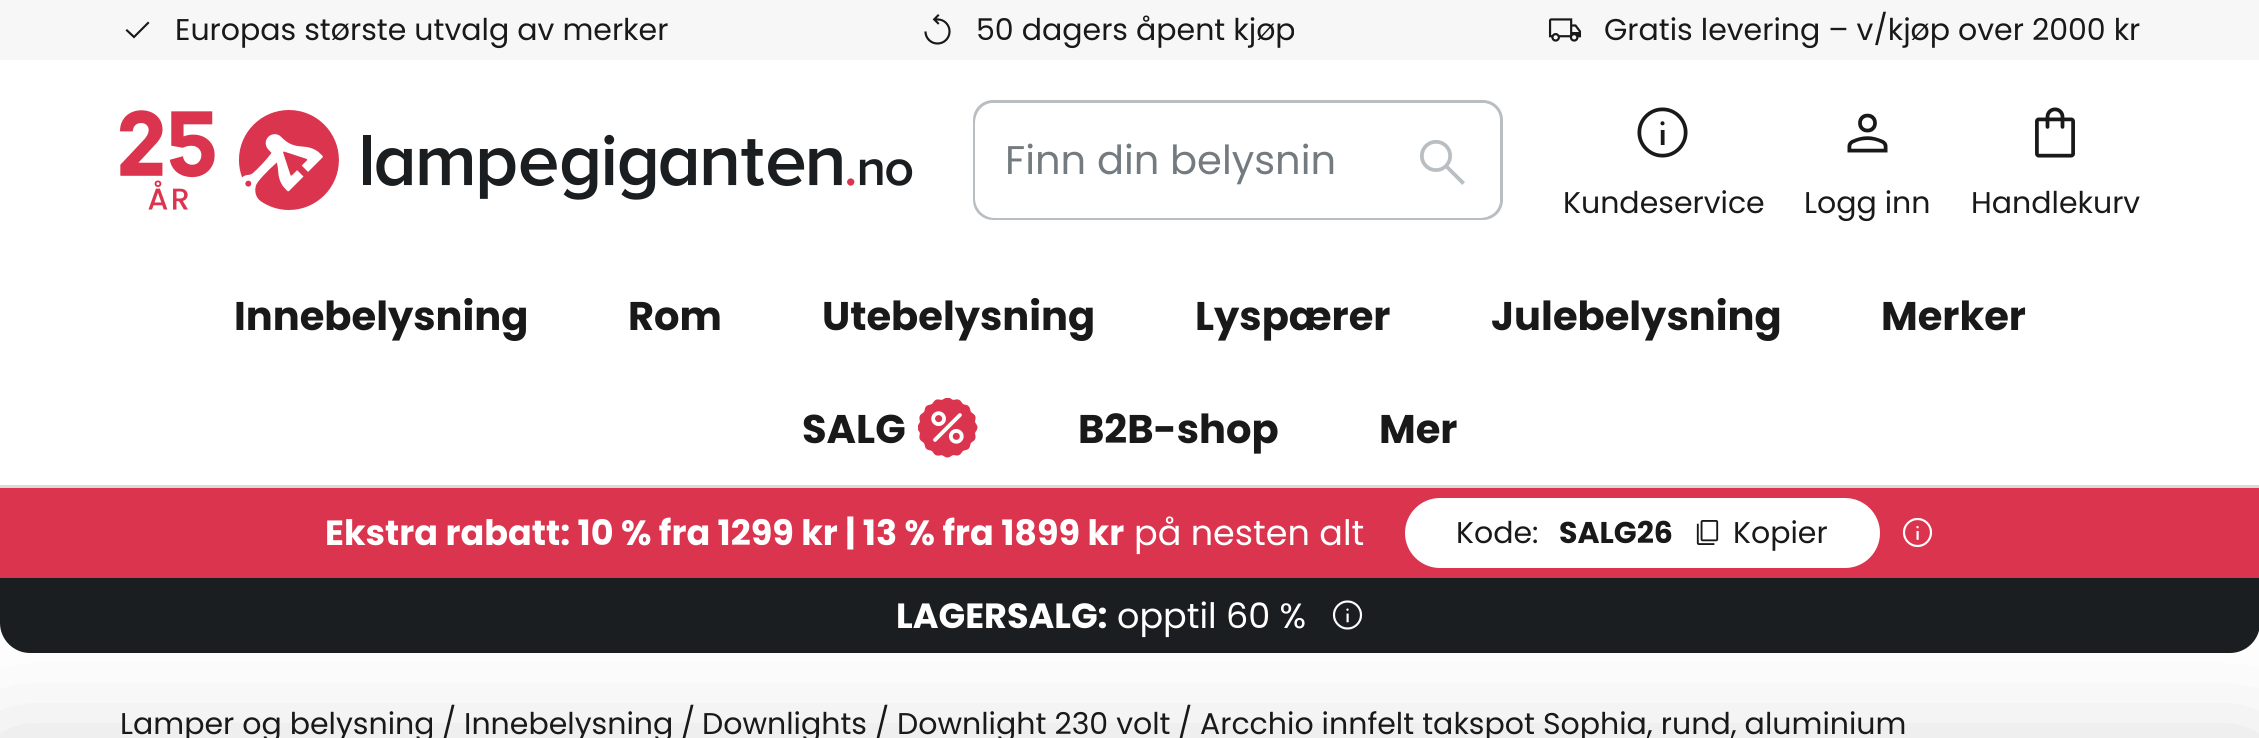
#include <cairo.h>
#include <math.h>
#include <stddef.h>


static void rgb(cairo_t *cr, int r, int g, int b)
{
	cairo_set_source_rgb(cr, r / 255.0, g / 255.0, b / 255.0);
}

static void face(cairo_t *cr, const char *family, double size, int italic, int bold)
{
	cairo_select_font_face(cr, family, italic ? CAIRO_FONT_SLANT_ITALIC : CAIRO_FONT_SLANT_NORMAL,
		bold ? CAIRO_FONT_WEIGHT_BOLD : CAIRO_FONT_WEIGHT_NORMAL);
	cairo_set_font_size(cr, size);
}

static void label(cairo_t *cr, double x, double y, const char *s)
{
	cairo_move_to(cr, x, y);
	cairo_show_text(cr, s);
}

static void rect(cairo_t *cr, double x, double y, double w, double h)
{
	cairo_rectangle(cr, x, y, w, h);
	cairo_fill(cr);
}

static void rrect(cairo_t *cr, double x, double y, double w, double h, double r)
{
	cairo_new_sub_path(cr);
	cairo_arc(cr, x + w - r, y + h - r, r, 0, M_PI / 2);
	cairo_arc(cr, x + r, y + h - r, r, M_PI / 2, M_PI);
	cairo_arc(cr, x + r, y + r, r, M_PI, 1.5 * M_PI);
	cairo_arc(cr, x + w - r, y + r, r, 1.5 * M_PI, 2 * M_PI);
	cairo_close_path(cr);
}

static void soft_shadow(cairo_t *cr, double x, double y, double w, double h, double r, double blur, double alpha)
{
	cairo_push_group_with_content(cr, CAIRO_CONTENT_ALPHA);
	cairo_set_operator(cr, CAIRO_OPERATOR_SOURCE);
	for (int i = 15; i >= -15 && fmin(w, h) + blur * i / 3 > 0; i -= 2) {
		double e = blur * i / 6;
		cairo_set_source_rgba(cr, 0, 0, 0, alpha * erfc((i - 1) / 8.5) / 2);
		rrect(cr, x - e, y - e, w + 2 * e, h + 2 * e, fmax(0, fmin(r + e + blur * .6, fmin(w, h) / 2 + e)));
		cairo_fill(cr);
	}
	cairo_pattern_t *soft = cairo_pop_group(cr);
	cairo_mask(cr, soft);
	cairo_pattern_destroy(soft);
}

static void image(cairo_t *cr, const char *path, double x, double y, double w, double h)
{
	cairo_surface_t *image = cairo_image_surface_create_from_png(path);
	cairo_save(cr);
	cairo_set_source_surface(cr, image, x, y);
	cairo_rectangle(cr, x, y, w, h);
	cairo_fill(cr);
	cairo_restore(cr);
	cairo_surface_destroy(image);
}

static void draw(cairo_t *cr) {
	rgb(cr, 255, 255, 255);
	cairo_paint(cr);
	rgb(cr, 247, 247, 248);
	rect(cr, 0, 0, 2259, 60);
	rgb(cr, 25, 25, 25);
	cairo_new_path(cr);
	cairo_move_to(cr, 134, 38.5);
	cairo_line_to(cr, 125.5, 30.5);
	cairo_line_to(cr, 127, 29);
	cairo_line_to(cr, 134, 35.5);
	cairo_line_to(cr, 148, 21.5);
	cairo_line_to(cr, 149.5, 23);
	cairo_close_path(cr);
	cairo_fill(cr);
	face(cr, "Poppins", 30, 0, 0);
	label(cr, 175, 40, "Europas største utvalg av merker");
	image(cr, "image0.png", 924, 14, 27, 31);
	label(cr, 976, 40, "50 dagers åpent kjøp");
	image(cr, "image1.png", 1548, 18, 34, 24);
	label(cr, 1604, 40, "Gratis levering – v/kjøp over 2000 kr");
	image(cr, "image2.png", 120, 110, 793, 100);
	rrect(cr, 974.5, 101.5, 527, 117, 18.5);
	rgb(cr, 185, 190, 194);
	cairo_set_line_width(cr, 3);
	cairo_stroke(cr);
	rgb(cr, 255, 255, 255);
	rrect(cr, 975, 103, 525, 115, 20);
	cairo_fill(cr);
	face(cr, "Poppins", 40, 0, 0);
	rgb(cr, 115, 123, 128);
	label(cr, 1005, 174, "Finn din belysnin");
	image(cr, "image3.png", 1420, 140, 45, 45);
	image(cr, "image4.png", 1637, 107, 51, 51);
	face(cr, "Poppins", 30, 0, 0);
	rgb(cr, 25, 25, 25);
	label(cr, 1563, 213, "Kundeservice");
	image(cr, "image5.png", 1847, 113, 41, 40);
	label(cr, 1804, 213, "Logg inn");
	image(cr, "image6.png", 2035, 107, 40, 51);
	label(cr, 1971, 213, "Handlekurv");
	rgb(cr, 215, 219, 221);
	rect(cr, 0, 485, 2259, 3);
	face(cr, "Poppins", 40, 0, 1);
	rgb(cr, 25, 25, 25);
	label(cr, 234, 330, "Innebelysning");
	label(cr, 628, 330, "Rom");
	label(cr, 822, 330, "Utebelysning");
	label(cr, 1195, 330, "Lyspærer");
	label(cr, 1491, 330, "Julebelysning");
	label(cr, 1881, 330, "Merker");
	label(cr, 802, 443, "SALG");
	image(cr, "image7.png", 918, 398, 60, 60);
	label(cr, 1078, 443, "B2B-shop");
	label(cr, 1379, 443, "Mer");
	rgb(cr, 218, 52, 78);
	rect(cr, 0, 488, 2259, 90);
	face(cr, "Poppins", 35, 0, 1);
	rgb(cr, 255, 255, 255);
	label(cr, 325, 545, "Ekstra rabatt: 10 % fra 1299 kr | 13 % fra 1899 kr");
	face(cr, "Poppins", 35, 0, 0);
	label(cr, 1134, 545, "på nesten alt");
	rrect(cr, 1406.5, 499.5, 472, 67, 33.5);
	cairo_fill_preserve(cr);
	cairo_stroke(cr);
	face(cr, "Poppins", 30, 0, 0);
	rgb(cr, 25, 25, 25);
	label(cr, 1456, 543, "Kode:");
	face(cr, "Poppins", 30, 0, 1);
	label(cr, 1559, 543, "SALG26");
	image(cr, "image8.png", 1696, 520, 23, 25);
	face(cr, "Poppins", 30, 0, 0);
	label(cr, 1733, 543, "Kopier");
	image(cr, "image9.png", 1902, 517, 31, 31);
	rgb(cr, 27, 30, 32);
	cairo_new_path(cr);
	cairo_move_to(cr, 0, 578);
	cairo_line_to(cr, 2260, 578);
	cairo_line_to(cr, 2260, 623);
	cairo_curve_to(cr, 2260, 639.5, 2246.5, 653, 2230, 653);
	cairo_line_to(cr, 30, 653);
	cairo_curve_to(cr, 13.5, 653, 0, 639.5, 0, 623);
	cairo_close_path(cr);
	cairo_fill(cr);
	face(cr, "Poppins", 35, 0, 1);
	rgb(cr, 255, 255, 255);
	label(cr, 896, 628, "LAGERSALG:");
	face(cr, "Poppins", 35, 0, 0);
	label(cr, 1117, 628, "opptil 60 %");
	image(cr, "image10.png", 1332, 600, 31, 30);
	rgb(cr, 25, 25, 25);
	soft_shadow(cr, 0, 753, 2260, 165, 0, 60, 0.2);
	face(cr, "Poppins", 30, 0, 0);
	rgb(cr, 25, 25, 25);
	label(cr, 120, 734, "Lamper og belysning");
	label(cr, 442, 733, "/");
	label(cr, 464, 734, "Innebelysning");
	label(cr, 681, 733, "/");
	label(cr, 702, 734, "Downlights");
	label(cr, 875, 733, "/");
	label(cr, 897, 734, "Downlight 230 volt");
	label(cr, 1178, 733, "/");
	label(cr, 1200, 734, "Arcchio innfelt takspot Sophia, rund, aluminium");
}

int main(void) {
	cairo_surface_t *surface = cairo_image_surface_create(CAIRO_FORMAT_RGB24, 2259, 738);
	cairo_t *cr = cairo_create(surface);
	cairo_font_options_t *options = cairo_font_options_create();
	cairo_font_options_set_hint_metrics(options, CAIRO_HINT_METRICS_OFF);
	cairo_font_options_set_hint_style(options, CAIRO_HINT_STYLE_NONE);
	cairo_set_font_options(cr, options);
	cairo_set_miter_limit(cr, 4);
	draw(cr);
	cairo_surface_write_to_png(surface, "render.png");
	cairo_font_options_destroy(options);
	cairo_destroy(cr);
	cairo_surface_destroy(surface);
	return 0;
}
